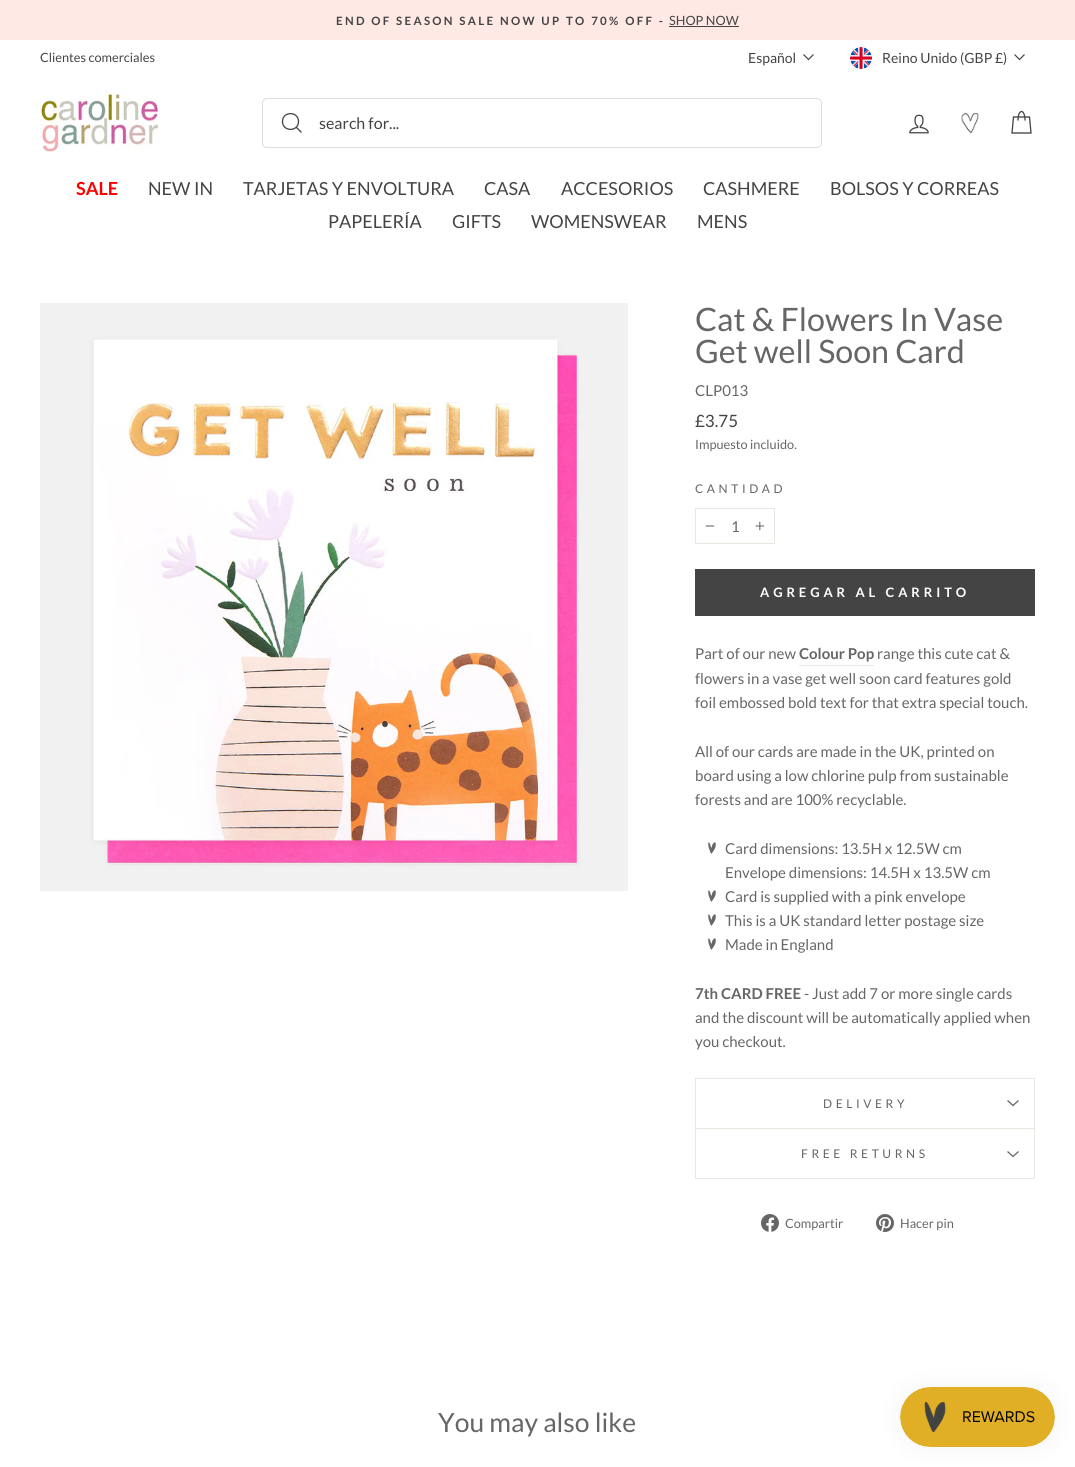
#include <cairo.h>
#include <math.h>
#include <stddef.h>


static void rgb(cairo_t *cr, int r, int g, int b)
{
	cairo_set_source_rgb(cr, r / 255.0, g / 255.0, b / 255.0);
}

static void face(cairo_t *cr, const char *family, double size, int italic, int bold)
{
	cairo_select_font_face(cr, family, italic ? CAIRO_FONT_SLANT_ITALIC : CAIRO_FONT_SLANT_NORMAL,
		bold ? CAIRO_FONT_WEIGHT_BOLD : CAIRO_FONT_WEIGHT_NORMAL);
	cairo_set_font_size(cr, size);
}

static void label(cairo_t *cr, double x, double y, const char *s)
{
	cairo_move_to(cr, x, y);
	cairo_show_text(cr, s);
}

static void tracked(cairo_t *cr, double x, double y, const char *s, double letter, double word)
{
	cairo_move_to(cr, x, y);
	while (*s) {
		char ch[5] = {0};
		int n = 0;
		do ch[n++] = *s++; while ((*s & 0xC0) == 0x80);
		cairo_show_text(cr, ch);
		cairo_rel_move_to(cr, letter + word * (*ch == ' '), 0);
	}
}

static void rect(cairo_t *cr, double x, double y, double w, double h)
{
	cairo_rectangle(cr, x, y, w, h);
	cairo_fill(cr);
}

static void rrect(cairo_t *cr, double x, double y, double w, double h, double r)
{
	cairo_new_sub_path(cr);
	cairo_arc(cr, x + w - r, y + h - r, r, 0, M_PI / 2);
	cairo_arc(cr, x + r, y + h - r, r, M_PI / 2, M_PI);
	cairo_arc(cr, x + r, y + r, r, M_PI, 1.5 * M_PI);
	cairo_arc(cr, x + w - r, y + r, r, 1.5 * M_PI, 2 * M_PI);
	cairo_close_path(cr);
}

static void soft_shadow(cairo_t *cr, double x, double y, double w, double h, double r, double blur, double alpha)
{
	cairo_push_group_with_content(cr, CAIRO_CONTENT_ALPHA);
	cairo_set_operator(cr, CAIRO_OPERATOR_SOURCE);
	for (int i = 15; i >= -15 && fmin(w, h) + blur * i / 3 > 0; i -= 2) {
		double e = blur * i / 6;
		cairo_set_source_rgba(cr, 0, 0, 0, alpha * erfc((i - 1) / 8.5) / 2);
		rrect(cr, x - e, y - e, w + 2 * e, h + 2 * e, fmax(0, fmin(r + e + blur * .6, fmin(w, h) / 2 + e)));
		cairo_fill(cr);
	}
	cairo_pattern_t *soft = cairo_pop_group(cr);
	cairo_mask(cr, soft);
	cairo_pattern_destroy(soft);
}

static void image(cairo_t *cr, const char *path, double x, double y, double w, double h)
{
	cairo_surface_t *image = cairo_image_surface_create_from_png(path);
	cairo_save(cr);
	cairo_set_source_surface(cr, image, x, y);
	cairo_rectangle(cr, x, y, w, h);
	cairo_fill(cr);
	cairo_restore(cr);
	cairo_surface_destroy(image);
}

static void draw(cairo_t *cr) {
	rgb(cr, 255, 255, 255);
	cairo_paint(cr);
	rgb(cr, 255, 233, 229);
	rect(cr, 0, 0, 1075, 40);
	face(cr, "Lato", 11.5, 0, 1);
	rgb(cr, 68, 68, 68);
	tracked(cr, 336, 25, "END OF SEASON SALE NOW UP TO 70% OFF -", 2.3, 0);
	face(cr, "Lato", 12.75, 0, 0);
	label(cr, 669, 25, "SHOP NOW");
	rect(cr, 669, 26, 70, 1);
	label(cr, 40, 62, "Clientes comerciales");
	face(cr, "Lato", 14, 0, 0);
	label(cr, 748, 63, "Español");
	cairo_new_path(cr);
	cairo_move_to(cr, 803.5, 54.5);
	cairo_line_to(cr, 808.5, 59.5);
	cairo_line_to(cr, 813.5, 54.5);
	cairo_set_line_width(cr, 1.2);
	cairo_stroke(cr);
	image(cr, "image0.png", 850, 47, 22, 22);
	label(cr, 882, 63, "Reino Unido (GBP £)");
	cairo_new_path(cr);
	cairo_move_to(cr, 1014.5, 54.5);
	cairo_line_to(cr, 1019.5, 59.5);
	cairo_line_to(cr, 1024.5, 54.5);
	cairo_stroke(cr);
	image(cr, "image1.png", 40, 94, 120, 58);
	rrect(cr, 262.5, 98.5, 559, 49, 4.5);
	rgb(cr, 221, 221, 221);
	cairo_set_line_width(cr, 1);
	cairo_stroke(cr);
	cairo_new_path(cr);
	cairo_move_to(cr, 298.5, 121.5);
	cairo_curve_to(cr, 298.5, 132, 282.5, 132, 282.5, 121.5);
	cairo_curve_to(cr, 282.5, 111, 298.5, 111, 298.5, 121.5);
	cairo_close_path(cr);
	cairo_move_to(cr, 301.5, 132.5);
	cairo_line_to(cr, 296.5, 127.5);
	rgb(cr, 68, 68, 68);
	cairo_set_line_width(cr, 1.3);
	cairo_stroke(cr);
	face(cr, "Lato", 16, 0, 0);
	label(cr, 319, 129, "search for...");
	image(cr, "image2.png", 909, 114, 20, 20);
	image(cr, "image3.png", 961, 113, 18, 20);
	cairo_new_path(cr);
	cairo_move_to(cr, 1018, 120.5);
	cairo_curve_to(cr, 1018, 108.5, 1025, 108.5, 1025, 120.5);
	cairo_move_to(cr, 1013.5, 117);
	cairo_line_to(cr, 1029.5, 117);
	cairo_line_to(cr, 1031, 133);
	cairo_line_to(cr, 1012, 133);
	cairo_close_path(cr);
	cairo_stroke(cr);
	face(cr, "Lato", 18, 0, 1);
	rgb(cr, 255, 0, 0);
	label(cr, 76, 195, "SALE");
	face(cr, "Lato", 18, 0, 0);
	rgb(cr, 68, 68, 68);
	label(cr, 148, 195, "NEW IN");
	label(cr, 243, 195, "TARJETAS Y ENVOLTURA");
	label(cr, 484, 195, "CASA");
	label(cr, 561, 195, "ACCESORIOS");
	label(cr, 703, 195, "CASHMERE");
	label(cr, 830, 195, "BOLSOS Y CORREAS");
	label(cr, 328, 228, "PAPELERÍA");
	label(cr, 452, 228, "GIFTS");
	label(cr, 531, 228, "WOMENSWEAR");
	label(cr, 697, 228, "MENS");
	image(cr, "image4.png", 40, 303, 588, 588);
	face(cr, "Lato", 32.25, 0, 0);
	rgb(cr, 102, 102, 102);
	label(cr, 695, 331, "Cat & Flowers In Vase");
	label(cr, 695, 363, "Get well Soon Card");
	face(cr, "Lato", 15, 0, 0);
	label(cr, 695, 396, "CLP013");
	face(cr, "Lato", 17, 0, 0);
	rgb(cr, 68, 68, 68);
	label(cr, 695, 427, "£3.75");
	face(cr, "Lato", 12.75, 0, 0);
	rgb(cr, 102, 102, 102);
	label(cr, 695, 449, "Impuesto incluido.");
	face(cr, "Lato", 12, 0, 0);
	tracked(cr, 695, 493, "CANTIDAD", 3.6, 0);
	cairo_rectangle(cr, 695.5, 508.5, 79, 35);
	rgb(cr, 232, 232, 225);
	cairo_set_line_width(cr, 1);
	cairo_stroke(cr);
	image(cr, "image5.png", 705, 525, 10, 2);
	face(cr, "Lato", 15, 0, 0);
	rgb(cr, 102, 102, 102);
	label(cr, 731, 532, "1");
	image(cr, "image6.png", 755, 521, 10, 10);
	rgb(cr, 68, 68, 68);
	rect(cr, 695, 569, 340, 47);
	face(cr, "Lato", 13, 0, 1);
	rgb(cr, 255, 255, 255);
	tracked(cr, 760, 597, "AGREGAR AL CARRITO", 3.9, 0);
	face(cr, "Lato", 15, 0, 0);
	rgb(cr, 102, 102, 102);
	label(cr, 695, 659, "Part of our new");
	rgb(cr, 232, 232, 232);
	rect(cr, 799, 665, 75, 1);
	face(cr, "Lato", 15, 0, 1);
	rgb(cr, 102, 102, 102);
	label(cr, 799, 659, "Colour Pop");
	face(cr, "Lato", 15, 0, 0);
	label(cr, 877, 659, "range this cute cat &");
	label(cr, 695, 684, "flowers in a vase get well soon card features gold");
	label(cr, 695, 708, "foil embossed bold text for that extra special touch.");
	label(cr, 695, 757, "All of our cards are made in the UK, printed on");
	label(cr, 695, 781, "board using a low chlorine pulp from sustainable");
	label(cr, 695, 805, "forests and are 100% recyclable.");
	image(cr, "image7.png", 708, 842, 8, 12);
	label(cr, 725, 854, "Card dimensions: 13.5H x 12.5W cm");
	label(cr, 725, 878, "Envelope dimensions: 14.5H x 13.5W cm");
	image(cr, "image7.png", 708, 890, 8, 12);
	label(cr, 725, 902, "Card is supplied with a pink envelope");
	image(cr, "image7.png", 708, 914, 8, 12);
	label(cr, 725, 926, "This is a UK standard letter postage size");
	image(cr, "image7.png", 708, 938, 8, 12);
	label(cr, 725, 950, "Made in England");
	face(cr, "Lato", 15, 0, 1);
	label(cr, 695, 999, "7th CARD FREE");
	face(cr, "Lato", 15, 0, 0);
	label(cr, 804, 999, "- Just add 7 or more single cards");
	label(cr, 695, 1023, "and the discount will be automatically applied when");
	label(cr, 695, 1047, "you checkout.");
	rgb(cr, 232, 232, 225);
	rect(cr, 695, 1128, 340, 1);
	rect(cr, 695, 1078, 340, 1);
	rect(cr, 1034, 1078, 1, 50);
	rect(cr, 695, 1078, 1, 50);
	face(cr, "Lato", 12, 0, 0);
	rgb(cr, 102, 102, 102);
	tracked(cr, 823, 1108, "DELIVERY", 3.6, 0);
	cairo_new_path(cr);
	cairo_move_to(cr, 1007.5, 1100.5);
	cairo_line_to(cr, 1013, 1105.5);
	cairo_line_to(cr, 1018.5, 1100.5);
	cairo_set_line_width(cr, 1.3);
	cairo_stroke(cr);
	rgb(cr, 232, 232, 225);
	rect(cr, 695, 1178, 340, 1);
	rect(cr, 1034, 1129, 1, 49);
	rect(cr, 695, 1129, 1, 49);
	rgb(cr, 102, 102, 102);
	tracked(cr, 801, 1158, "FREE RETURNS", 3.6, 0);
	cairo_new_path(cr);
	cairo_move_to(cr, 1007.5, 1151.5);
	cairo_line_to(cr, 1013, 1156.5);
	cairo_line_to(cr, 1018.5, 1151.5);
	cairo_stroke(cr);
	image(cr, "image8.png", 761, 1214, 18, 18);
	face(cr, "Lato", 12.75, 0, 0);
	label(cr, 785, 1228, "Compartir");
	image(cr, "image9.png", 876, 1214, 18, 18);
	label(cr, 900, 1228, "Hacer pin");
	face(cr, "Lato", 26.5, 0, 0);
	label(cr, 438, 1432, "You may also like");
	rgb(cr, 0, 0, 0);
	soft_shadow(cr, 900, 1387, 155, 60, 30, 12.5, 0.05);
	image(cr, "image10.png", 900, 1387, 155, 60);
}

int main(void) {
	cairo_surface_t *surface = cairo_image_surface_create(CAIRO_FORMAT_RGB24, 1075, 1467);
	cairo_t *cr = cairo_create(surface);
	cairo_font_options_t *options = cairo_font_options_create();
	cairo_font_options_set_hint_metrics(options, CAIRO_HINT_METRICS_OFF);
	cairo_font_options_set_hint_style(options, CAIRO_HINT_STYLE_NONE);
	cairo_set_font_options(cr, options);
	cairo_set_miter_limit(cr, 4);
	draw(cr);
	cairo_surface_write_to_png(surface, "render.png");
	cairo_font_options_destroy(options);
	cairo_destroy(cr);
	cairo_surface_destroy(surface);
	return 0;
}
